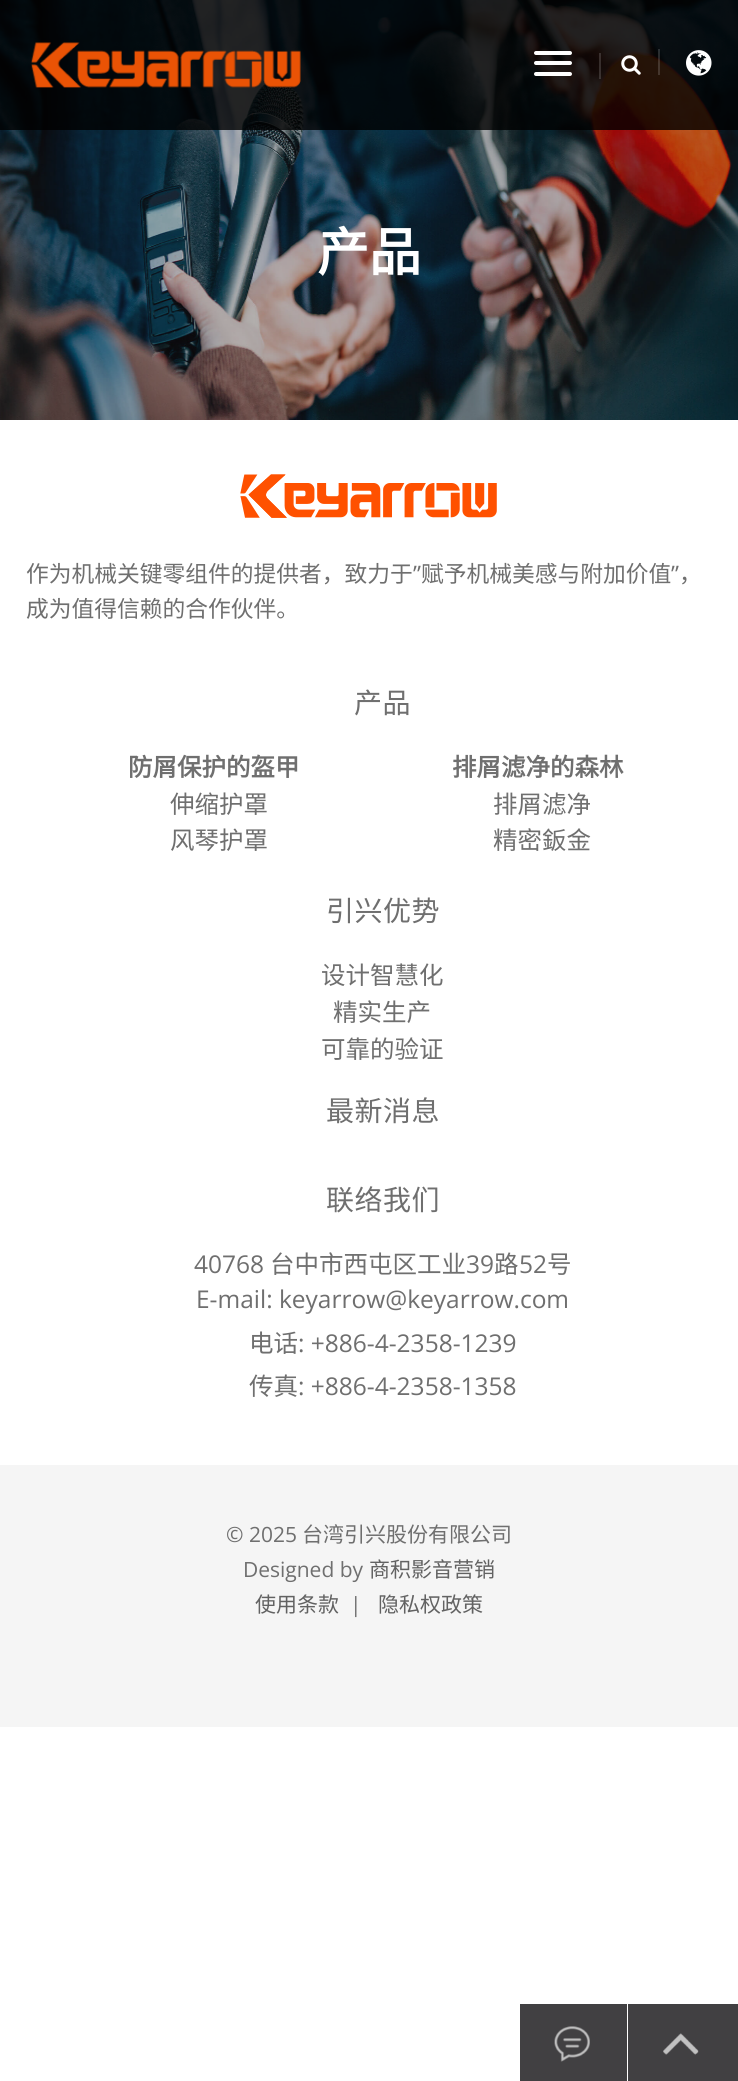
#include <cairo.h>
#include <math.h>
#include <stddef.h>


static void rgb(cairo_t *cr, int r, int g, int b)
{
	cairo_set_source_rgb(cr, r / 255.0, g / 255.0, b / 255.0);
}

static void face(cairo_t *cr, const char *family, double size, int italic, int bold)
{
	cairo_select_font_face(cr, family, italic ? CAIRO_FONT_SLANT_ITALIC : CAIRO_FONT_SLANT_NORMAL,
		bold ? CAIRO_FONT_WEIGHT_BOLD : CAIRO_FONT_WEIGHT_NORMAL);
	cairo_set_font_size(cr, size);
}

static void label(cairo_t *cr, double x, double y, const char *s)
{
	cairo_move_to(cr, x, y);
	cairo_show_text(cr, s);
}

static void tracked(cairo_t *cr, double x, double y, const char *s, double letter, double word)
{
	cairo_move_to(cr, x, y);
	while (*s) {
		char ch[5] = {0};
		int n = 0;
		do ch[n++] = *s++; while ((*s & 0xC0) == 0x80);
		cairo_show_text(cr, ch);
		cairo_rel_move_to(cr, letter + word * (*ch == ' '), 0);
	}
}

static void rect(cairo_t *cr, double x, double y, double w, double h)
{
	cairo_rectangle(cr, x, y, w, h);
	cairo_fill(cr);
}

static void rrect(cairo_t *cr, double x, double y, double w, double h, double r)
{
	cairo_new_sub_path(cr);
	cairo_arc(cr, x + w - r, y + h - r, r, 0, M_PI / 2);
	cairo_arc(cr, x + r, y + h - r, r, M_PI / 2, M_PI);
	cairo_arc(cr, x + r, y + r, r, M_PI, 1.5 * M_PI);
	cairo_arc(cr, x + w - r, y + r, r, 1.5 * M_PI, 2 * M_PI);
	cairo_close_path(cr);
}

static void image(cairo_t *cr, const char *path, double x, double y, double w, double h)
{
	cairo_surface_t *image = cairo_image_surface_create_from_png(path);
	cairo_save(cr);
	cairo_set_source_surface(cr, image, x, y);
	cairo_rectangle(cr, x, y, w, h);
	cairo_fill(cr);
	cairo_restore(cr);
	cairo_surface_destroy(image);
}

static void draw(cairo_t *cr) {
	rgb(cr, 255, 255, 255);
	cairo_paint(cr);
	image(cr, "image3.png", 0, 0, 738, 420);
	cairo_set_source_rgba(cr, 0, 0, 0, 0.8);
	rect(cr, 0, 0, 738, 130);
	image(cr, "image0.png", 31, 42, 270, 46);
	rgb(cr, 255, 255, 255);
	rrect(cr, 534, 51, 38, 4, 2);
	cairo_fill(cr);
	rrect(cr, 534, 61, 38, 4, 2);
	cairo_fill(cr);
	rrect(cr, 534, 72, 38, 4, 2);
	cairo_fill(cr);
	cairo_set_source_rgba(cr, 1, 1, 1, 0.15);
	rect(cr, 599, 53, 2, 26);
	image(cr, "image1.png", 621, 55, 20, 20);
	rect(cr, 658, 49, 2, 26);
	image(cr, "image2.png", 686, 50, 26, 26);
	face(cr, "Noto Sans CJK SC", 52, 0, 1);
	rgb(cr, 255, 255, 255);
	label(cr, 317, 271, "产品");
	image(cr, "image4.png", 240, 474, 257, 44);
	face(cr, "Noto Sans CJK SC", 22.75, 0, 0);
	rgb(cr, 111, 111, 111);
	label(cr, 26, 582, "作为机械关键零组件的提供者，致力于");
	face(cr, "Open Sans", 22.75, 0, 0);
	label(cr, 413, 582, "”");
	face(cr, "Noto Sans CJK SC", 22.75, 0, 0);
	label(cr, 421, 582, "赋予机械美感与附加价值");
	face(cr, "Open Sans", 22.75, 0, 0);
	label(cr, 671, 582, "”");
	face(cr, "Noto Sans CJK SC", 22.75, 0, 0);
	label(cr, 679, 582, "，");
	label(cr, 26, 617, "成为值得信赖的合作伙伴。");
	face(cr, "Noto Sans CJK SC", 28, 0, 0);
	tracked(cr, 354, 713, "产品", 0.5, 0);
	face(cr, "Noto Sans CJK SC", 24.5, 0, 1);
	label(cr, 128, 776, "防屑保护的盔甲");
	face(cr, "Noto Sans CJK SC", 24.5, 0, 0);
	label(cr, 170, 813, "伸缩护罩");
	label(cr, 170, 849, "风琴护罩");
	face(cr, "Noto Sans CJK SC", 24.5, 0, 1);
	label(cr, 452, 776, "排屑滤净的森林");
	face(cr, "Noto Sans CJK SC", 24.5, 0, 0);
	label(cr, 493, 813, "排屑滤净");
	label(cr, 493, 849, "精密鈑金");
	face(cr, "Noto Sans CJK SC", 28, 0, 0);
	tracked(cr, 326, 921, "引兴优势", 0.5, 0);
	face(cr, "Noto Sans CJK SC", 24.5, 0, 0);
	label(cr, 321, 984, "设计智慧化");
	label(cr, 333, 1021, "精实生产");
	label(cr, 321, 1058, "可靠的验证");
	face(cr, "Noto Sans CJK SC", 28, 0, 0);
	tracked(cr, 326, 1121, "最新消息", 0.5, 0);
	tracked(cr, 326, 1210, "联络我们", 0.5, 0);
	face(cr, "Open Sans", 24.5, 0, 0);
	label(cr, 194, 1273, "40768");
	face(cr, "Noto Sans CJK SC", 24.5, 0, 0);
	label(cr, 270, 1273, "台中市西屯区工业");
	face(cr, "Open Sans", 24.5, 0, 0);
	label(cr, 466, 1273, "39");
	face(cr, "Noto Sans CJK SC", 24.5, 0, 0);
	label(cr, 494, 1273, "路");
	face(cr, "Open Sans", 24.5, 0, 0);
	label(cr, 519, 1273, "52");
	face(cr, "Noto Sans CJK SC", 24.5, 0, 0);
	label(cr, 547, 1273, "号");
	face(cr, "Open Sans", 24.5, 0, 0);
	label(cr, 196, 1308, "E-mail: keyarrow@keyarrow.com");
	face(cr, "Noto Sans CJK SC", 24.5, 0, 0);
	label(cr, 249, 1352, "电话");
	face(cr, "Open Sans", 24.5, 0, 0);
	label(cr, 298, 1352, ": +886-4-2358-1239");
	face(cr, "Noto Sans CJK SC", 24.5, 0, 0);
	label(cr, 249, 1395, "传真");
	face(cr, "Open Sans", 24.5, 0, 0);
	label(cr, 298, 1395, ": +886-4-2358-1358");
	rgb(cr, 245, 245, 245);
	rect(cr, 0, 1465, 738, 262);
	face(cr, "Open Sans", 21, 0, 0);
	rgb(cr, 111, 111, 111);
	label(cr, 226, 1542, "© 2025");
	face(cr, "Noto Sans CJK SC", 21, 0, 0);
	label(cr, 302, 1542, "台湾引兴股份有限公司");
	face(cr, "Open Sans", 21, 0, 0);
	label(cr, 243, 1577, "Designed by");
	face(cr, "Noto Sans CJK SC", 21, 0, 0);
	rgb(cr, 98, 98, 98);
	label(cr, 369, 1577, "商积影音营销");
	label(cr, 255, 1612, "使用条款");
	face(cr, "Open Sans", 21, 0, 0);
	rgb(cr, 111, 111, 111);
	label(cr, 350, 1612, "|");
	face(cr, "Noto Sans CJK SC", 21, 0, 0);
	rgb(cr, 98, 98, 98);
	label(cr, 378, 1612, "隐私权政策");
	rgb(cr, 65, 64, 66);
	rect(cr, 520, 2004, 107, 77);
	image(cr, "image5.png", 554, 2026, 36, 36);
	rect(cr, 628, 2004, 110, 77);
	image(cr, "image6.png", 663, 2033, 36, 22);
}

int main(void) {
	cairo_surface_t *surface = cairo_image_surface_create(CAIRO_FORMAT_RGB24, 738, 2081);
	cairo_t *cr = cairo_create(surface);
	cairo_font_options_t *options = cairo_font_options_create();
	cairo_font_options_set_hint_metrics(options, CAIRO_HINT_METRICS_OFF);
	cairo_font_options_set_hint_style(options, CAIRO_HINT_STYLE_NONE);
	cairo_set_font_options(cr, options);
	cairo_set_miter_limit(cr, 4);
	draw(cr);
	cairo_surface_write_to_png(surface, "render.png");
	cairo_font_options_destroy(options);
	cairo_destroy(cr);
	cairo_surface_destroy(surface);
	return 0;
}
